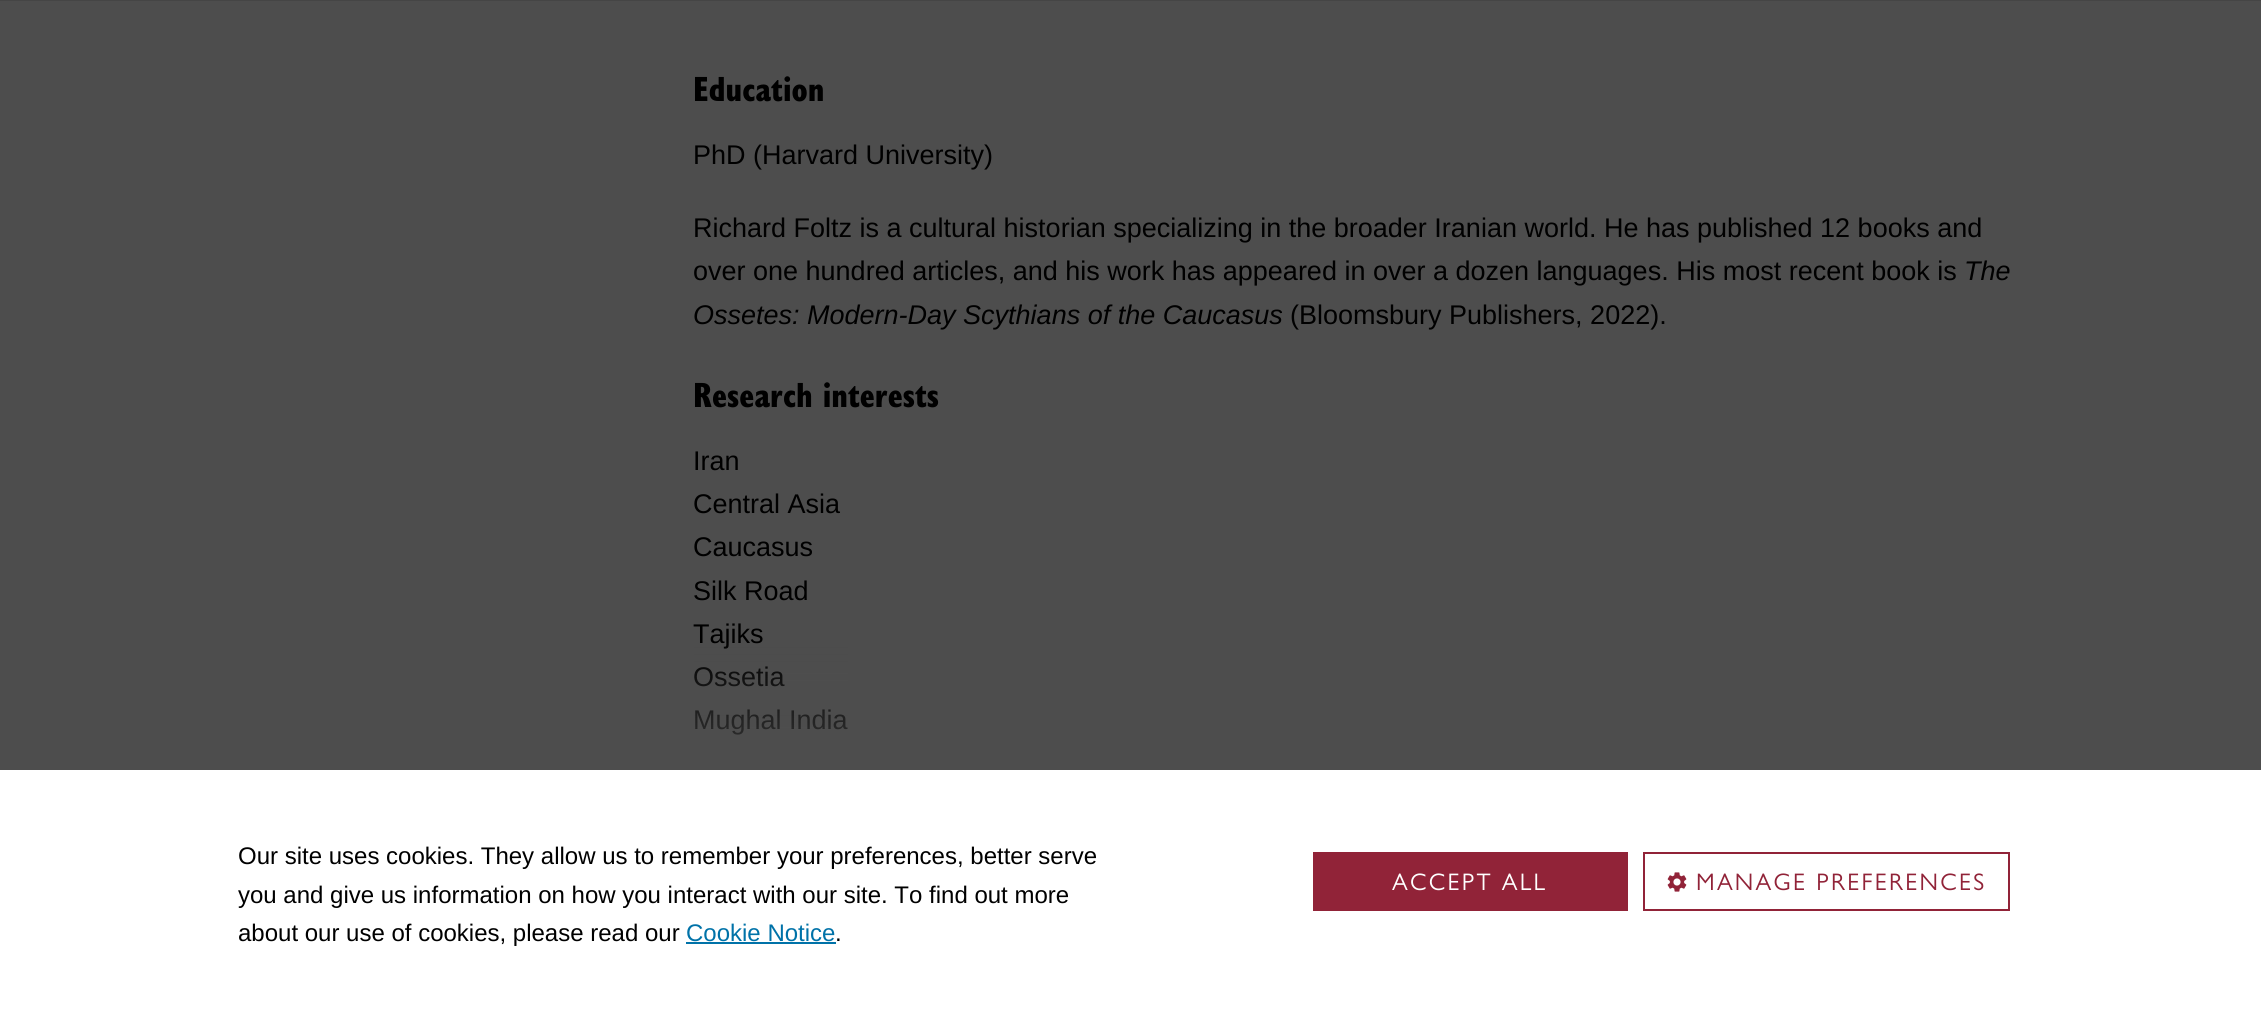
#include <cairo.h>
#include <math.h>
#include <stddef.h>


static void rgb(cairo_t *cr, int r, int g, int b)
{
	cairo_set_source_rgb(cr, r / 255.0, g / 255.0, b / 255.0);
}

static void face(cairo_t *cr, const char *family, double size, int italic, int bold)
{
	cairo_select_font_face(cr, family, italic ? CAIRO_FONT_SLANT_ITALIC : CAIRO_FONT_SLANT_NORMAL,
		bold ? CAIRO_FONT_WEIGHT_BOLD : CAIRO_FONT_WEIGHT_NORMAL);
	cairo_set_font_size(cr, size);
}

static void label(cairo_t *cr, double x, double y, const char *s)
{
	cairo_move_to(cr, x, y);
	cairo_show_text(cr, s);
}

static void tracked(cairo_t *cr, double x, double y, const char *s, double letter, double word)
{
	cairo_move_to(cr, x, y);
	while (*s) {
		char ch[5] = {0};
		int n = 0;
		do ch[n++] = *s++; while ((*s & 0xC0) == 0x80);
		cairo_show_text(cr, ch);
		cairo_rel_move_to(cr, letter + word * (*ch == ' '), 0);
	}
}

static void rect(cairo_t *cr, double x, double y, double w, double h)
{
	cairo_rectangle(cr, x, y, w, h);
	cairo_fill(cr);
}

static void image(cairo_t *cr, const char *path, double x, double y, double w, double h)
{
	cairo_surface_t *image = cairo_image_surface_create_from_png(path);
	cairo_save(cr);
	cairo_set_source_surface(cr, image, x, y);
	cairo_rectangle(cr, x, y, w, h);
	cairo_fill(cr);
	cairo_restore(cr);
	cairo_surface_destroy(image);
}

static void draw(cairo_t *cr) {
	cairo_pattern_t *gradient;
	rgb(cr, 77, 77, 77);
	cairo_paint(cr);
	cairo_set_source_rgba(cr, 0, 0, 0, 0.1);
	rect(cr, 0, 0, 2261, 1);
	face(cr, "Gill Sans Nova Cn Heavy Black", 36, 0, 0);
	rgb(cr, 0, 0, 0);
	label(cr, 693, 101, "Education");
	face(cr, "Liberation Sans", 27, 0, 0);
	label(cr, 693, 164, "PhD (Harvard University)");
	label(cr, 693, 237, "Richard Foltz is a cultural historian specializing in the broader Iranian world. He has published 12 books and");
	label(cr, 693, 280, "over one hundred articles, and his work has appeared in over a dozen languages. His most recent book is");
	face(cr, "Liberation Sans", 27, 1, 0);
	label(cr, 1964, 280, "The");
	label(cr, 693, 324, "Ossetes: Modern-Day Scythians of the Caucasus");
	face(cr, "Liberation Sans", 27, 0, 0);
	label(cr, 1290, 324, "(Bloomsbury Publishers, 2022).");
	face(cr, "Gill Sans Nova Cn Heavy Black", 36, 0, 0);
	label(cr, 693, 407, "Research interests");
	face(cr, "Liberation Sans", 27, 0, 0);
	label(cr, 693, 470, "Iran");
	label(cr, 693, 513, "Central Asia");
	label(cr, 693, 556, "Caucasus");
	label(cr, 693, 600, "Silk Road");
	label(cr, 693, 643, "Tajiks");
	label(cr, 693, 686, "Ossetia");
	label(cr, 693, 729, "Mughal India");
	gradient = cairo_pattern_create_linear(1361, 637, 1361, 818);
	cairo_pattern_add_color_stop_rgba(gradient, 0, 0.302, 0.302, 0.302, 0);
	cairo_pattern_add_color_stop_rgba(gradient, 1, 0.302, 0.302, 0.302, 1);
	cairo_set_source(cr, gradient);
	cairo_pattern_destroy(gradient);
	rect(cr, 694, 643, 154, 92);
	rgb(cr, 255, 255, 255);
	rect(cr, 0, 770, 2261, 249);
	face(cr, "Liberation Sans", 24, 0, 0);
	rgb(cr, 0, 0, 0);
	label(cr, 238, 864, "Our site uses cookies. They allow us to remember your preferences, better serve");
	label(cr, 238, 903, "you and give us information on how you interact with our site. To find out more");
	label(cr, 238, 941, "about our use of cookies, please read our");
	rgb(cr, 0, 114, 168);
	label(cr, 686, 941, "Cookie Notice");
	rect(cr, 686, 942, 150, 2);
	rgb(cr, 0, 0, 0);
	label(cr, 835, 941, ".");
	rgb(cr, 145, 35, 56);
	rect(cr, 1313, 852, 315, 59);
	face(cr, "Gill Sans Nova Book", 24, 0, 0);
	rgb(cr, 255, 255, 255);
	tracked(cr, 1392, 890, "ACCEPT ALL", 2.25, 0);
	cairo_rectangle(cr, 1644, 853, 365, 57);
	rgb(cr, 145, 35, 56);
	cairo_stroke(cr);
	image(cr, "image0.png", 1667, 872, 20, 20);
	tracked(cr, 1696, 890, "MANAGE PREFERENCES", 2.25, 0);
}

int main(void) {
	cairo_surface_t *surface = cairo_image_surface_create(CAIRO_FORMAT_RGB24, 2261, 1019);
	cairo_t *cr = cairo_create(surface);
	cairo_font_options_t *options = cairo_font_options_create();
	cairo_font_options_set_hint_metrics(options, CAIRO_HINT_METRICS_OFF);
	cairo_font_options_set_hint_style(options, CAIRO_HINT_STYLE_NONE);
	cairo_set_font_options(cr, options);
	cairo_set_miter_limit(cr, 4);
	draw(cr);
	cairo_surface_write_to_png(surface, "render.png");
	cairo_font_options_destroy(options);
	cairo_destroy(cr);
	cairo_surface_destroy(surface);
	return 0;
}
